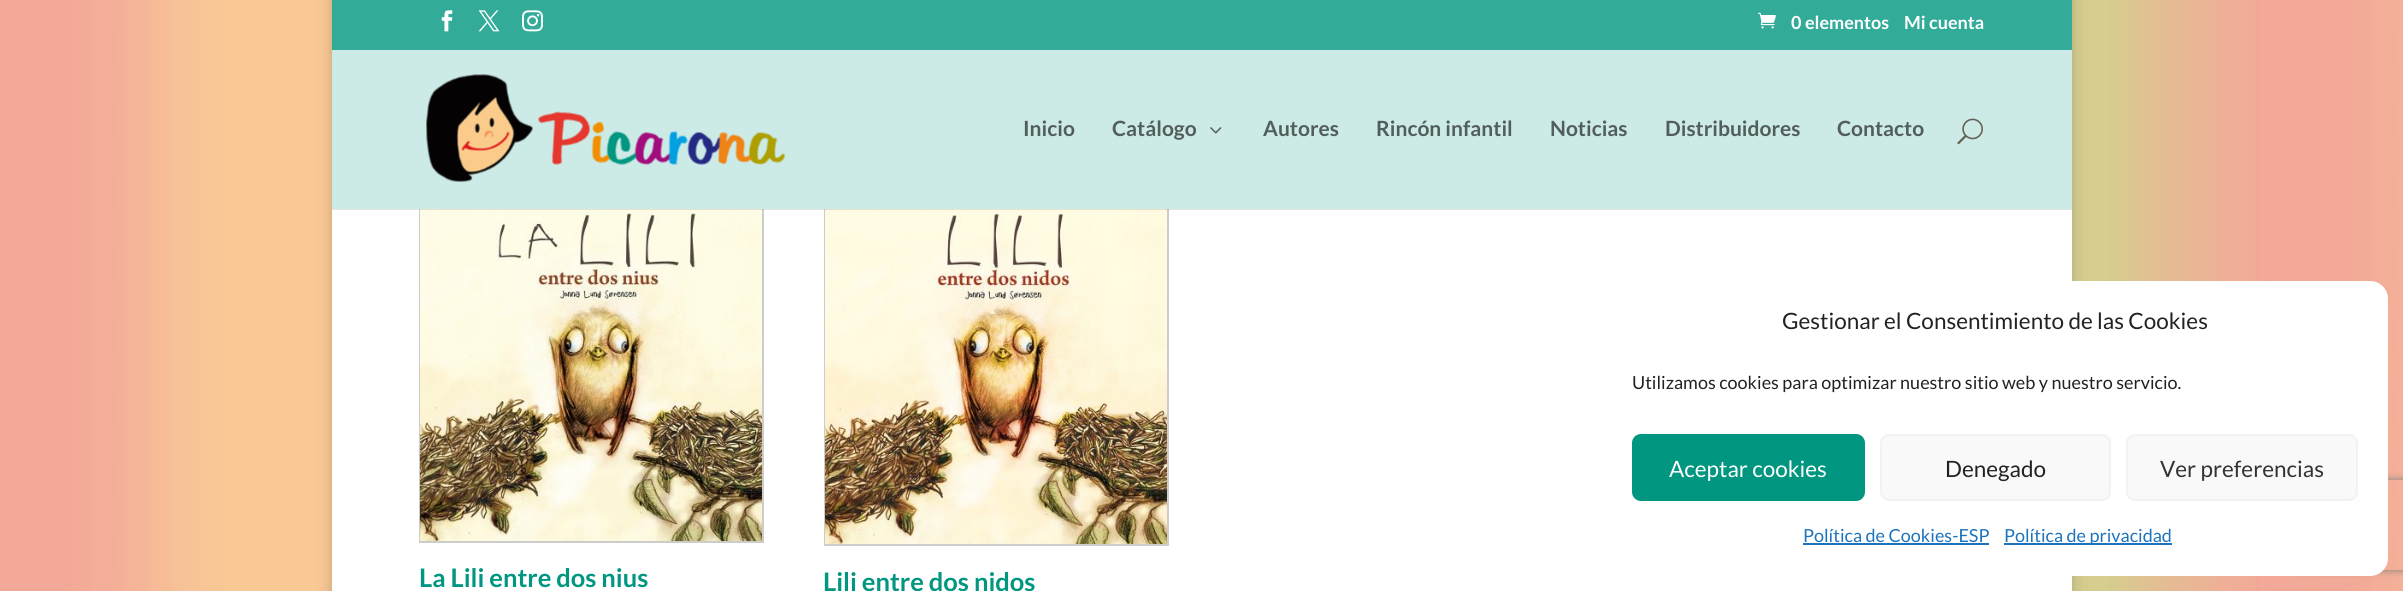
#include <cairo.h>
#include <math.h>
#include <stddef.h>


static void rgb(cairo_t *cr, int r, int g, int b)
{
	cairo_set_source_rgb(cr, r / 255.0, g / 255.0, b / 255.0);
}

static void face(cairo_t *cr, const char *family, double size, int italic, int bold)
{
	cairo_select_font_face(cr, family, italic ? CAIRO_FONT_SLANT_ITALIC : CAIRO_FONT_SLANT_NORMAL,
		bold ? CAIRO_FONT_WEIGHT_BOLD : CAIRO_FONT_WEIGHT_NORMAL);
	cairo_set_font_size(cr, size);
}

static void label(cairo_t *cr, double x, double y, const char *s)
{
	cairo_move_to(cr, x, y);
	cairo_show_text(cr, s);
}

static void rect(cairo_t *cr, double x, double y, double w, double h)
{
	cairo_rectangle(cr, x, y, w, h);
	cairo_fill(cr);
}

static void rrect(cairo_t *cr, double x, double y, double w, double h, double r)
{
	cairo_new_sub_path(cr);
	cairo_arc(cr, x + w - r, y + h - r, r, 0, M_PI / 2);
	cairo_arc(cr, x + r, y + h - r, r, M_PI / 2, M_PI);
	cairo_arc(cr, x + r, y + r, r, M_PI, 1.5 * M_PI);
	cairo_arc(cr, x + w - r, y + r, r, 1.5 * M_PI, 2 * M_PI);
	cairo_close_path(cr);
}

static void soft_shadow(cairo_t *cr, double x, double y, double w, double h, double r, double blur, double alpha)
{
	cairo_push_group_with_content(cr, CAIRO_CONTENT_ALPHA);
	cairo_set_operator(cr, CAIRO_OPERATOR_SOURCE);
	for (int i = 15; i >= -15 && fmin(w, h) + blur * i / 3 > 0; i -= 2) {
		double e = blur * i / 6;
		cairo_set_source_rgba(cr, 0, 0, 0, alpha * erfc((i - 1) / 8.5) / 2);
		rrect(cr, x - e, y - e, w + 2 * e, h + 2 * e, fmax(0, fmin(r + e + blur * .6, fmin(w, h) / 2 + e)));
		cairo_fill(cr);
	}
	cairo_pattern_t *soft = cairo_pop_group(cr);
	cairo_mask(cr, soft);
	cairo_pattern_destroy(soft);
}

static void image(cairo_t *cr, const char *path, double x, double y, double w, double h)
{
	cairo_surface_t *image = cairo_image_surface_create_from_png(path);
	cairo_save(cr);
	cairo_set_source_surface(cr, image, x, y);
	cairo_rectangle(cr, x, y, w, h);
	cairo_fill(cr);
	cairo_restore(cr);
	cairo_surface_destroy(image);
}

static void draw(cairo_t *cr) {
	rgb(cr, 255, 255, 255);
	cairo_paint(cr);
	image(cr, "image0.png", 0, 0, 2403, 591);
	rgb(cr, 0, 0, 0);
	soft_shadow(cr, 332, -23, 1740, 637, 0, 7.5, 0.2);
	rgb(cr, 51, 171, 153);
	rect(cr, 332, 0, 1740, 50);
	image(cr, "image1.png", 441, 10, 12, 22);
	image(cr, "image2.png", 478, 10, 22, 22);
	image(cr, "image3.png", 522, 10, 21, 22);
	image(cr, "image4.png", 1758, 12, 18, 17);
	face(cr, "Lato", 18, 0, 1);
	rgb(cr, 255, 255, 255);
	label(cr, 1791, 29, "0 elementos");
	label(cr, 1904, 29, "Mi cuenta");
	rect(cr, 332, 209, 1740, 382);
	cairo_rectangle(cr, 420, 193, 343, 349);
	rgb(cr, 204, 204, 204);
	cairo_stroke(cr);
	image(cr, "image8.png", 420, 209, 342, 332);
	cairo_rectangle(cr, 825, 193, 343, 352);
	cairo_stroke(cr);
	image(cr, "image9.png", 825, 209, 342, 335);
	cairo_set_source_rgba(cr, 0, 0, 0, 0.1);
	cairo_new_path(cr);
	cairo_move_to(cr, 332, 208);
	cairo_line_to(cr, 332, 210);
	cairo_line_to(cr, 2072, 210);
	cairo_line_to(cr, 2072, 51);
	cairo_line_to(cr, 2072, 208);
	cairo_close_path(cr);
	cairo_fill(cr);
	rgb(cr, 204, 234, 230);
	rect(cr, 332, 50, 1740, 159);
	image(cr, "image5.png", 426, 74, 360, 108);
	face(cr, "Lato", 21, 0, 1);
	rgb(cr, 82, 94, 92);
	label(cr, 1023, 136, "Inicio");
	label(cr, 1112, 136, "Catálogo");
	image(cr, "image6.png", 1210, 127, 12, 7);
	label(cr, 1263, 136, "Autores");
	label(cr, 1376, 136, "Rincón infantil");
	label(cr, 1550, 136, "Noticias");
	label(cr, 1665, 136, "Distribuidores");
	label(cr, 1837, 136, "Contacto");
	image(cr, "image7.png", 1957, 118, 26, 27);
	face(cr, "Lato", 25.5, 0, 1);
	rgb(cr, 0, 150, 128);
	label(cr, 419, 587, "La Lili entre dos nius");
	label(cr, 823, 591, "Lili entre dos nidos");
	cairo_save(cr);
	cairo_set_fill_rule(cr, CAIRO_FILL_RULE_EVEN_ODD);
	cairo_new_path(cr);
	cairo_move_to(cr, 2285, 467);
	cairo_line_to(cr, 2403, 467);
	cairo_line_to(cr, 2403, 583);
	cairo_line_to(cr, 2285, 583);
	cairo_close_path(cr);
	cairo_move_to(cr, 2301, 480);
	cairo_line_to(cr, 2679, 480);
	cairo_curve_to(cr, 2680.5, 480, 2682, 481.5, 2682, 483);
	cairo_line_to(cr, 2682, 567);
	cairo_curve_to(cr, 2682, 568.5, 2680.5, 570, 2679, 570);
	cairo_line_to(cr, 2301, 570);
	cairo_curve_to(cr, 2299.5, 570, 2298, 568.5, 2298, 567);
	cairo_line_to(cr, 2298, 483);
	cairo_curve_to(cr, 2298, 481.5, 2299.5, 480, 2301, 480);
	cairo_close_path(cr);
	cairo_clip(cr);
	rgb(cr, 128, 128, 128);
	soft_shadow(cr, 2298, 480, 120, 90, 3, 4, 1);
	cairo_restore(cr);
	rgb(cr, 255, 255, 255);
	rrect(cr, 1602, 281, 786, 295, 18);
	cairo_fill(cr);
	face(cr, "Lato", 22.5, 0, 0);
	rgb(cr, 34, 34, 34);
	label(cr, 1782, 329, "Gestionar el Consentimiento de las Cookies");
	face(cr, "Lato", 18, 0, 0);
	label(cr, 1632, 389, "Utilizamos cookies para optimizar nuestro sitio web y nuestro servicio.");
	rgb(cr, 0, 150, 128);
	rrect(cr, 1633, 435, 231, 65, 8);
	cairo_fill_preserve(cr);
	cairo_stroke(cr);
	face(cr, "Lato", 22.5, 0, 0);
	rgb(cr, 255, 255, 255);
	label(cr, 1669, 477, "Aceptar cookies");
	rgb(cr, 249, 249, 249);
	rrect(cr, 1881, 435, 229, 65, 8);
	cairo_fill_preserve(cr);
	rgb(cr, 242, 242, 242);
	cairo_stroke(cr);
	rgb(cr, 34, 34, 34);
	label(cr, 1945, 477, "Denegado");
	rgb(cr, 249, 249, 249);
	rrect(cr, 2127, 435, 230, 65, 8);
	cairo_fill_preserve(cr);
	rgb(cr, 242, 242, 242);
	cairo_stroke(cr);
	rgb(cr, 51, 51, 51);
	label(cr, 2160, 477, "Ver preferencias");
	face(cr, "Lato", 18, 0, 0);
	rgb(cr, 30, 115, 190);
	label(cr, 1803, 542, "Política de Cookies-ESP");
	rect(cr, 1803, 543, 186, 2);
	rect(cr, 2004, 543, 168, 2);
	label(cr, 2004, 542, "Política de privacidad");
}

int main(void) {
	cairo_surface_t *surface = cairo_image_surface_create(CAIRO_FORMAT_RGB24, 2403, 591);
	cairo_t *cr = cairo_create(surface);
	cairo_font_options_t *options = cairo_font_options_create();
	cairo_font_options_set_hint_metrics(options, CAIRO_HINT_METRICS_OFF);
	cairo_font_options_set_hint_style(options, CAIRO_HINT_STYLE_NONE);
	cairo_set_font_options(cr, options);
	cairo_set_miter_limit(cr, 4);
	draw(cr);
	cairo_surface_write_to_png(surface, "render.png");
	cairo_font_options_destroy(options);
	cairo_destroy(cr);
	cairo_surface_destroy(surface);
	return 0;
}
